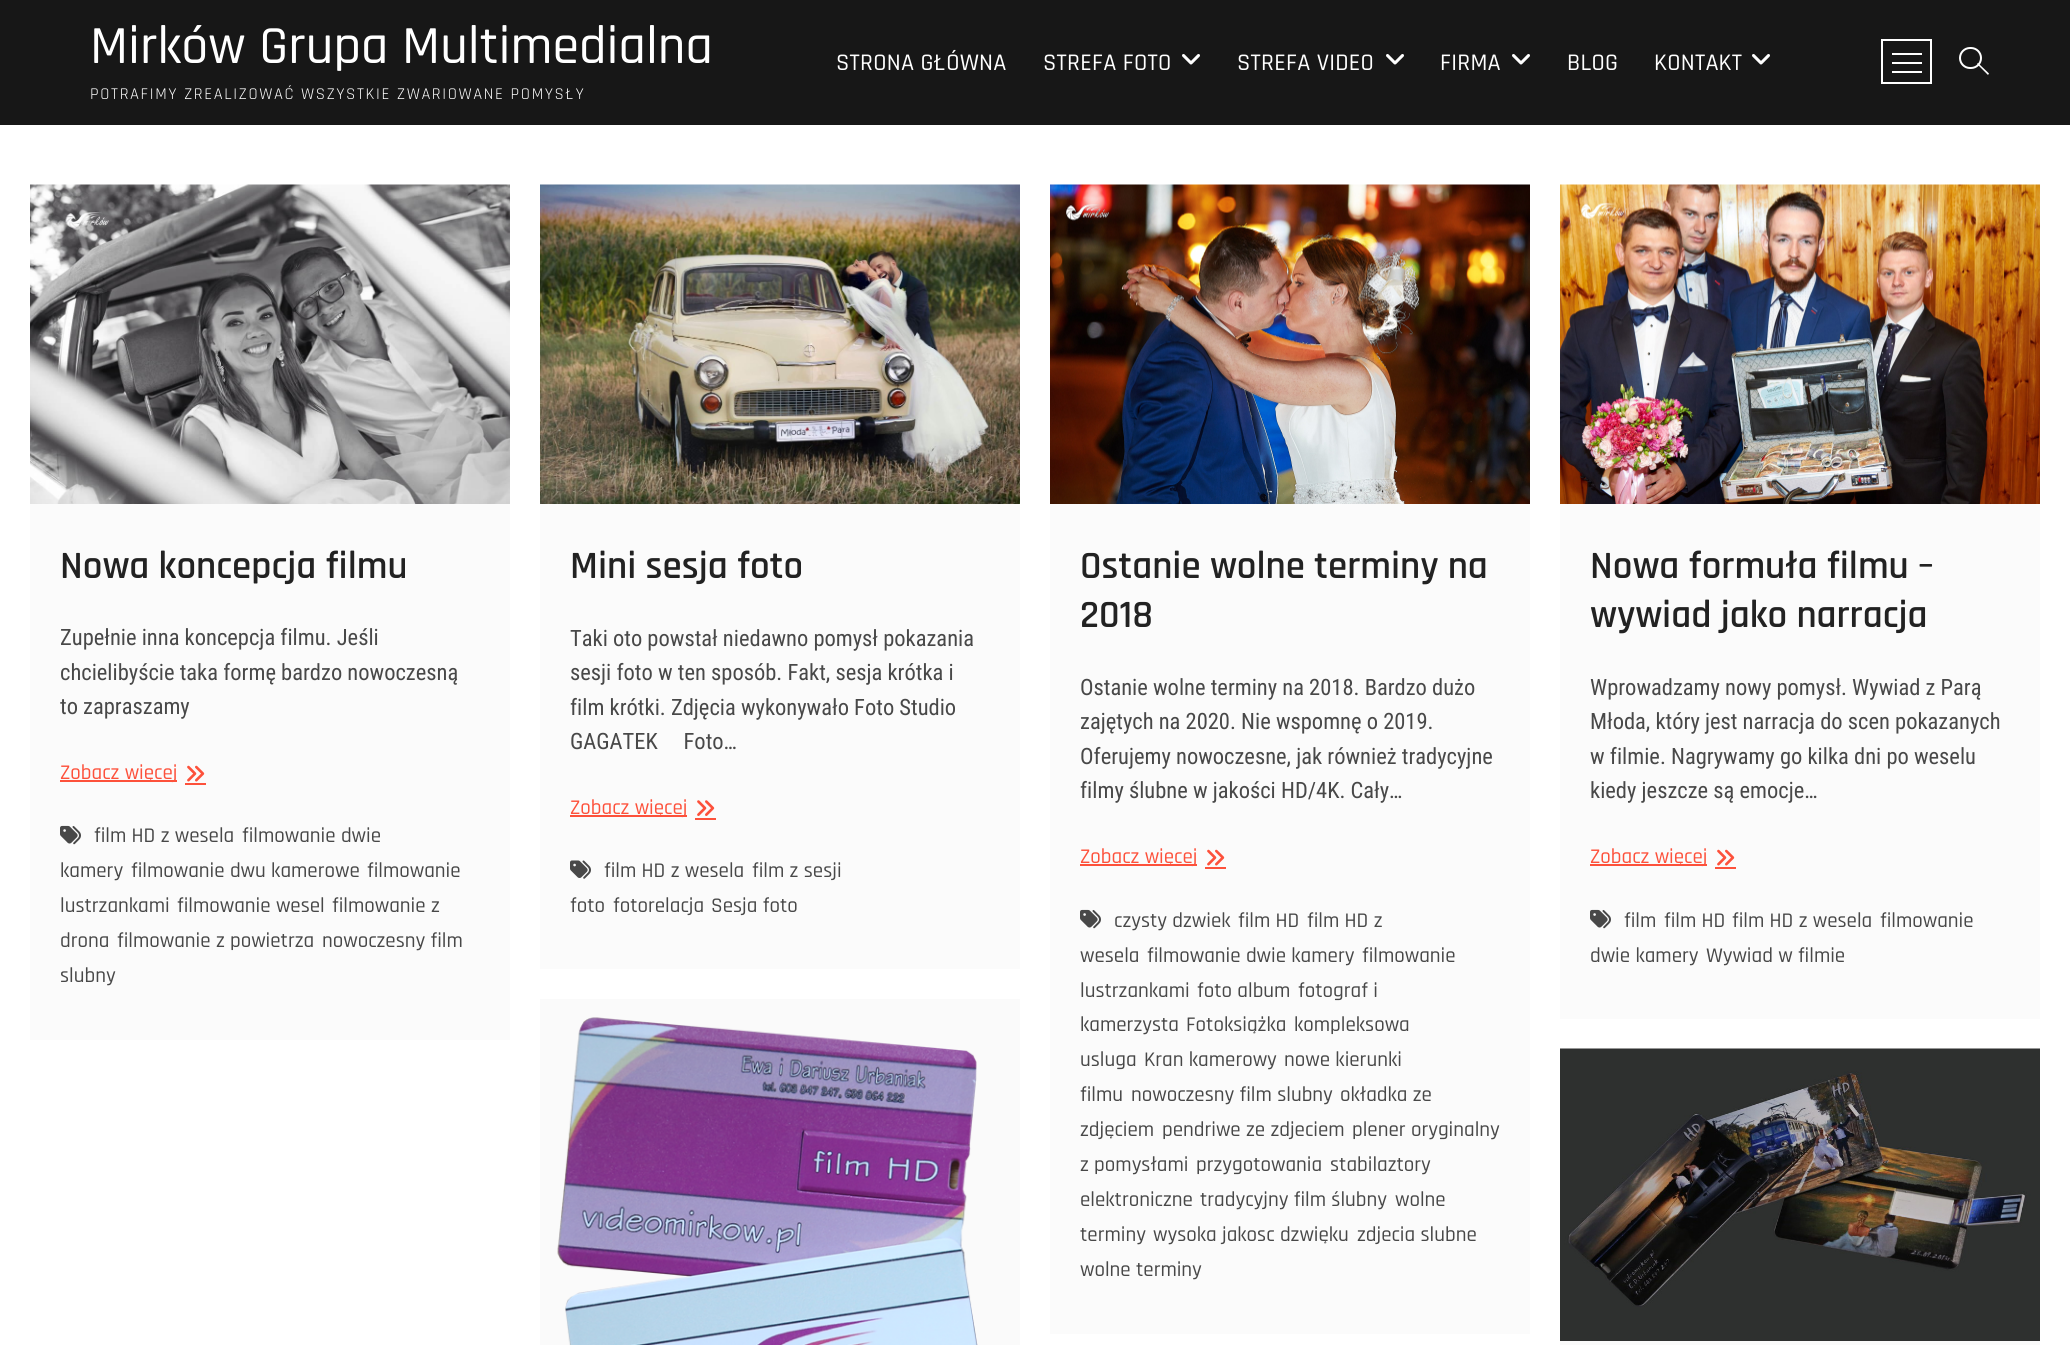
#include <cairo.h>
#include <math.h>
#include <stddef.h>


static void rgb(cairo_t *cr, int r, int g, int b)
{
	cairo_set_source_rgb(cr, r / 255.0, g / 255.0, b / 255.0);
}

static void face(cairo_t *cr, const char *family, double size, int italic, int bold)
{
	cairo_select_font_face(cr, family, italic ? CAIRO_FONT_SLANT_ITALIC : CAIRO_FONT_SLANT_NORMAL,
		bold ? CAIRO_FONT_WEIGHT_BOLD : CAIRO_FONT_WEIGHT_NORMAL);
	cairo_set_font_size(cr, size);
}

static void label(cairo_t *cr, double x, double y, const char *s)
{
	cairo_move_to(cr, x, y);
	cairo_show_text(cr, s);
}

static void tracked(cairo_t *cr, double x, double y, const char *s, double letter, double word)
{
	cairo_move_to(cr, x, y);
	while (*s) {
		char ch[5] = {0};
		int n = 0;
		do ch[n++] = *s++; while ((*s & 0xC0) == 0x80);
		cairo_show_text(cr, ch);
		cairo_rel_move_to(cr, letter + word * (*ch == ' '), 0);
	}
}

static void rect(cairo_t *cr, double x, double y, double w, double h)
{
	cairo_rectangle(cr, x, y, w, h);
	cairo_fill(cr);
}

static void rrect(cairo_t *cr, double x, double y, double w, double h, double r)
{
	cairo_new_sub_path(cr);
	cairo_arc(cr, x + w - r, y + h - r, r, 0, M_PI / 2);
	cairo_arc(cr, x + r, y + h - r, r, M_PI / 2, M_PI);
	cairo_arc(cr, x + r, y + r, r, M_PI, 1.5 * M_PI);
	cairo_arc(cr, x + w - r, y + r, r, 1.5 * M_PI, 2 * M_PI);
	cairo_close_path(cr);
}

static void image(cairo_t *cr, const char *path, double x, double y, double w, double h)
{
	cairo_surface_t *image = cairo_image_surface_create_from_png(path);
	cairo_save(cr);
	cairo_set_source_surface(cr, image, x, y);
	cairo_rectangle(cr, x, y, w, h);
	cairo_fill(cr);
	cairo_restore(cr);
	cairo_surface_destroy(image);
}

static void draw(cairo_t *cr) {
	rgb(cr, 255, 255, 255);
	cairo_paint(cr);
	rgb(cr, 23, 23, 23);
	rect(cr, 0, 0, 2070, 125);
	face(cr, "Rajdhani Medium", 54, 0, 0);
	rgb(cr, 255, 255, 255);
	label(cr, 90, 63, "Mirków Grupa Multimedialna");
	face(cr, "Rajdhani", 16.5, 0, 0);
	tracked(cr, 90, 99, "POTRAFIMY ZREALIZOWAĆ WSZYSTKIE ZWARIOWANE POMYSŁY", 1.65, 0);
	face(cr, "Rajdhani Medium", 24, 0, 0);
	tracked(cr, 836, 70, "STRONA GŁÓWNA", 0.25, 0);
	tracked(cr, 1043, 70, "STREFA FOTO", 0.25, 0);
	image(cr, "image0.png", 1182, 54, 18, 11);
	tracked(cr, 1237, 70, "STREFA VIDEO", 0.25, 0);
	image(cr, "image0.png", 1386, 54, 18, 11);
	tracked(cr, 1440, 70, "FIRMA", 0.25, 0);
	image(cr, "image0.png", 1512, 54, 18, 11);
	tracked(cr, 1567, 70, "BLOG", 0.25, 0);
	tracked(cr, 1654, 70, "KONTAKT", 0.25, 0);
	image(cr, "image0.png", 1752, 54, 18, 11);
	cairo_rectangle(cr, 1882, 40, 49, 43);
	cairo_stroke(cr);
	rect(cr, 1892, 62, 30, 2);
	rect(cr, 1892, 53, 30, 2);
	rect(cr, 1892, 71, 30, 2);
	rrect(cr, 1960, 48, 21, 20, 10);
	cairo_stroke(cr);
	cairo_new_path(cr);
	cairo_move_to(cr, 1977, 64);
	cairo_line_to(cr, 1978, 63);
	cairo_line_to(cr, 1989, 73.5);
	cairo_line_to(cr, 1988, 75);
	cairo_close_path(cr);
	cairo_fill(cr);
	rgb(cr, 251, 251, 251);
	rect(cr, 30, 504, 480, 536);
	image(cr, "image1.png", 30, 184, 480, 320);
	face(cr, "Rajdhani SemiBold", 39, 0, 0);
	rgb(cr, 34, 34, 34);
	label(cr, 60, 578, "Nowa koncepcja filmu");
	face(cr, "Roboto Condensed", 22.5, 0, 0);
	rgb(cr, 72, 72, 72);
	label(cr, 60, 645, "Zupełnie inna koncepcja filmu. Jeśli");
	label(cr, 60, 680, "chcielibyście taka formę bardzo nowoczesną");
	label(cr, 60, 714, "to zapraszamy");
	rgb(cr, 253, 81, 59);
	rect(cr, 60, 780, 117, 2);
	face(cr, "Rajdhani Medium", 21, 0, 0);
	label(cr, 60, 779, "Zobacz więcej");
	image(cr, "image2.png", 187, 765, 18, 17);
	rect(cr, 185, 783, 21, 2);
	image(cr, "image3.png", 60, 825, 21, 20);
	rgb(cr, 72, 72, 72);
	label(cr, 94, 842, "film HD z wesela");
	label(cr, 242, 842, "filmowanie dwie");
	label(cr, 60, 877, "kamery");
	label(cr, 131, 877, "filmowanie dwu kamerowe");
	label(cr, 367, 877, "filmowanie");
	label(cr, 60, 912, "lustrzankami");
	label(cr, 177, 912, "filmowanie wesel");
	label(cr, 332, 912, "filmowanie z");
	label(cr, 60, 947, "drona");
	label(cr, 117, 947, "filmowanie z powietrza");
	label(cr, 322, 947, "nowoczesny film");
	label(cr, 60, 982, "slubny");
	rgb(cr, 251, 251, 251);
	rect(cr, 540, 504, 480, 465);
	image(cr, "image4.png", 540, 184, 480, 320);
	face(cr, "Rajdhani SemiBold", 39, 0, 0);
	rgb(cr, 34, 34, 34);
	label(cr, 570, 578, "Mini sesja foto");
	face(cr, "Roboto Condensed", 22.5, 0, 0);
	rgb(cr, 72, 72, 72);
	label(cr, 570, 646, "Taki oto powstał niedawno pomysł pokazania");
	label(cr, 570, 680, "sesji foto w ten sposób. Fakt, sesja krótka i");
	label(cr, 570, 715, "film krótki. Zdjęcia wykonywało Foto Studio");
	label(cr, 570, 749, "GAGATEK     Foto…");
	rgb(cr, 253, 81, 59);
	rect(cr, 570, 815, 117, 2);
	face(cr, "Rajdhani Medium", 21, 0, 0);
	label(cr, 570, 814, "Zobacz więcej");
	image(cr, "image5.png", 697, 800, 18, 16);
	rect(cr, 695, 818, 21, 2);
	image(cr, "image6.png", 570, 860, 21, 19);
	rgb(cr, 72, 72, 72);
	label(cr, 604, 877, "film HD z wesela");
	label(cr, 752, 877, "film z sesji");
	label(cr, 570, 912, "foto");
	label(cr, 613, 912, "fotorelacja");
	label(cr, 711, 912, "Sesja foto");
	rgb(cr, 251, 251, 251);
	rect(cr, 1050, 504, 480, 830);
	image(cr, "image7.png", 1050, 184, 480, 320);
	face(cr, "Rajdhani SemiBold", 39, 0, 0);
	rgb(cr, 34, 34, 34);
	label(cr, 1080, 578, "Ostanie wolne terminy na");
	label(cr, 1080, 627, "2018");
	face(cr, "Roboto Condensed", 22.5, 0, 0);
	rgb(cr, 72, 72, 72);
	label(cr, 1080, 695, "Ostanie wolne terminy na 2018. Bardzo dużo");
	label(cr, 1080, 729, "zajętych na 2020. Nie wspomnę o 2019.");
	label(cr, 1080, 764, "Oferujemy nowoczesne, jak również tradycyjne");
	label(cr, 1080, 798, "filmy ślubne w jakości HD/4K. Cały…");
	rgb(cr, 253, 81, 59);
	rect(cr, 1080, 864, 117, 2);
	face(cr, "Rajdhani Medium", 21, 0, 0);
	label(cr, 1080, 863, "Zobacz więcej");
	image(cr, "image2.png", 1207, 849, 18, 17);
	rect(cr, 1205, 867, 21, 2);
	image(cr, "image3.png", 1080, 909, 21, 20);
	rgb(cr, 72, 72, 72);
	label(cr, 1114, 927, "czysty dzwiek");
	label(cr, 1238, 927, "film HD");
	label(cr, 1307, 927, "film HD z");
	label(cr, 1080, 962, "wesela");
	label(cr, 1147, 962, "filmowanie dwie kamery");
	label(cr, 1362, 962, "filmowanie");
	label(cr, 1080, 997, "lustrzankami");
	label(cr, 1197, 997, "foto album");
	label(cr, 1298, 997, "fotograf i");
	label(cr, 1080, 1031, "kamerzysta");
	label(cr, 1186, 1031, "Fotoksiążka");
	label(cr, 1294, 1031, "kompleksowa");
	label(cr, 1080, 1066, "usluga");
	label(cr, 1144, 1066, "Kran kamerowy");
	label(cr, 1284, 1066, "nowe kierunki");
	label(cr, 1080, 1101, "filmu");
	label(cr, 1131, 1101, "nowoczesny film slubny");
	label(cr, 1340, 1101, "okładka ze");
	label(cr, 1080, 1136, "zdjęciem");
	label(cr, 1162, 1136, "pendriwe ze zdjeciem");
	label(cr, 1352, 1136, "plener oryginalny");
	label(cr, 1080, 1171, "z pomysłami");
	label(cr, 1196, 1171, "przygotowania");
	label(cr, 1330, 1171, "stabilaztory");
	label(cr, 1080, 1206, "elektroniczne");
	label(cr, 1200, 1206, "tradycyjny film ślubny");
	label(cr, 1395, 1206, "wolne");
	label(cr, 1080, 1241, "terminy");
	label(cr, 1153, 1241, "wysoka jakosc dzwięku");
	label(cr, 1357, 1241, "zdjecia slubne");
	label(cr, 1080, 1276, "wolne terminy");
	rgb(cr, 251, 251, 251);
	rect(cr, 1560, 504, 480, 515);
	image(cr, "image8.png", 1560, 184, 480, 320);
	face(cr, "Rajdhani SemiBold", 39, 0, 0);
	rgb(cr, 34, 34, 34);
	label(cr, 1590, 578, "Nowa formuła filmu –");
	label(cr, 1590, 627, "wywiad jako narracja");
	face(cr, "Roboto Condensed", 22.5, 0, 0);
	rgb(cr, 72, 72, 72);
	label(cr, 1590, 695, "Wprowadzamy nowy pomysł. Wywiad z Parą");
	label(cr, 1590, 729, "Młoda, który jest narracja do scen pokazanych");
	label(cr, 1590, 764, "w filmie. Nagrywamy go kilka dni po weselu");
	label(cr, 1590, 798, "kiedy jeszcze są emocje…");
	rgb(cr, 253, 81, 59);
	rect(cr, 1590, 864, 117, 2);
	face(cr, "Rajdhani Medium", 21, 0, 0);
	label(cr, 1590, 863, "Zobacz więcej");
	image(cr, "image2.png", 1717, 849, 18, 17);
	rect(cr, 1715, 867, 21, 2);
	image(cr, "image3.png", 1590, 909, 21, 20);
	rgb(cr, 72, 72, 72);
	label(cr, 1624, 927, "film");
	label(cr, 1664, 927, "film HD");
	label(cr, 1732, 927, "film HD z wesela");
	label(cr, 1880, 927, "filmowanie");
	label(cr, 1590, 962, "dwie kamery");
	label(cr, 1706, 962, "Wywiad w filmie");
	rgb(cr, 250, 250, 250);
	rect(cr, 540, 999, 480, 346);
	image(cr, "image9.png", 557, 1017, 421, 328);
	rect(cr, 1560, 1341, 480, 4);
	image(cr, "image10.png", 1560, 1048, 480, 293);
}

int main(void) {
	cairo_surface_t *surface = cairo_image_surface_create(CAIRO_FORMAT_RGB24, 2070, 1345);
	cairo_t *cr = cairo_create(surface);
	cairo_font_options_t *options = cairo_font_options_create();
	cairo_font_options_set_hint_metrics(options, CAIRO_HINT_METRICS_OFF);
	cairo_font_options_set_hint_style(options, CAIRO_HINT_STYLE_NONE);
	cairo_set_font_options(cr, options);
	cairo_set_miter_limit(cr, 4);
	draw(cr);
	cairo_surface_write_to_png(surface, "render.png");
	cairo_font_options_destroy(options);
	cairo_destroy(cr);
	cairo_surface_destroy(surface);
	return 0;
}
